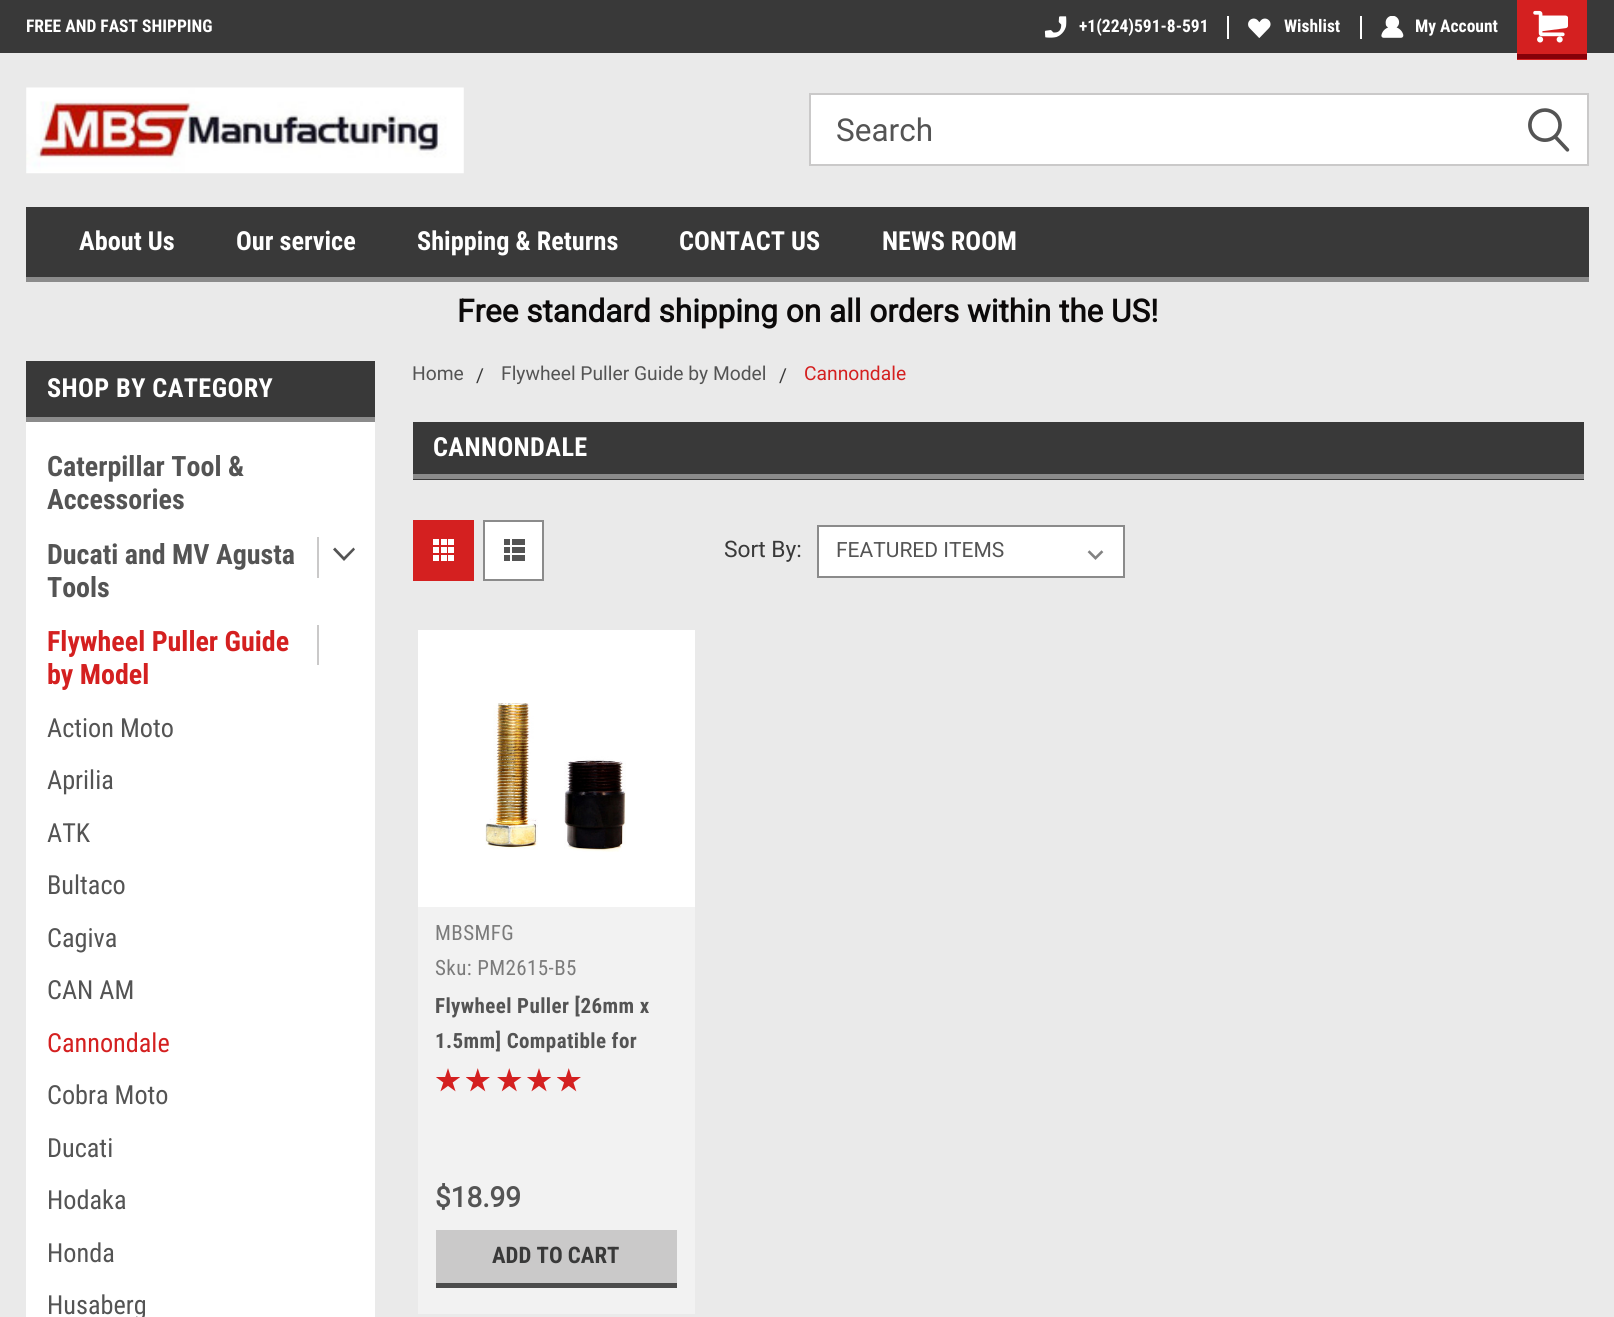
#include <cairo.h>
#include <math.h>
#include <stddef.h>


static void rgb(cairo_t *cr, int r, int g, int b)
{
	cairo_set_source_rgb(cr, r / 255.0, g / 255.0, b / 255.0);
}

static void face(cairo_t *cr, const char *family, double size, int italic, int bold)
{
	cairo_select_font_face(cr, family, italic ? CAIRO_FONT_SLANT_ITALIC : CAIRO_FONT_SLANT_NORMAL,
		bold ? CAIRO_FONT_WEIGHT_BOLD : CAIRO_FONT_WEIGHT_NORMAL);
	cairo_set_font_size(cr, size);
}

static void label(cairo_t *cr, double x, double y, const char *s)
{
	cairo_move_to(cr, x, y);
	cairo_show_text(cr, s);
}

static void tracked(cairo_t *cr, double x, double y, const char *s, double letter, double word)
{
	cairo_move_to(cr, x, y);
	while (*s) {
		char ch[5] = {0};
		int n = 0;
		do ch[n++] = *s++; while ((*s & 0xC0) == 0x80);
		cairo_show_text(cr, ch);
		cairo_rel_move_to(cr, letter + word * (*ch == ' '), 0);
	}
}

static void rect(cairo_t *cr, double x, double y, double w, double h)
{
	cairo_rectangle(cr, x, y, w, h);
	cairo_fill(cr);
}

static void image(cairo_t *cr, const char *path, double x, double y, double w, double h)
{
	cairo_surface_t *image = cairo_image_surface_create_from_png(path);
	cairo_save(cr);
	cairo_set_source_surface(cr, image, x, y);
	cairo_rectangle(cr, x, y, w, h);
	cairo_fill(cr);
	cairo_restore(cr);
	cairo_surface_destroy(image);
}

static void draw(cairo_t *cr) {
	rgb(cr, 234, 234, 234);
	cairo_paint(cr);
	rgb(cr, 57, 57, 57);
	rect(cr, 0, 0, 1614, 53);
	face(cr, "Roboto Condensed", 17.5, 0, 1);
	rgb(cr, 255, 255, 255);
	label(cr, 26, 32, "FREE AND FAST SHIPPING");
	rect(cr, 1227, 16, 2, 23);
	image(cr, "image0.png", 1044, 16, 23, 22);
	label(cr, 1079, 32, "+1(224)591-8-591");
	rect(cr, 1360, 16, 2, 23);
	image(cr, "image1.png", 1248, 18, 23, 20);
	label(cr, 1284, 32, "Wishlist");
	image(cr, "image2.png", 1381, 16, 23, 22);
	label(cr, 1415, 32, "My Account");
	rgb(cr, 212, 32, 32);
	rect(cr, 1517, 0, 70, 60);
	rgb(cr, 134, 1, 9);
	rect(cr, 1517, 54, 70, 5);
	image(cr, "image3.png", 1533, 10, 35, 33);
	image(cr, "image4.png", 26, 87, 438, 87);
	rgb(cr, 255, 255, 255);
	cairo_rectangle(cr, 810, 94, 778, 71);
	cairo_fill_preserve(cr);
	rgb(cr, 202, 201, 201);
	cairo_stroke(cr);
	face(cr, "Roboto", 31.5, 0, 0);
	rgb(cr, 84, 84, 84);
	label(cr, 836, 141, "Search");
	image(cr, "image5.png", 1528, 108, 42, 44);
	rgb(cr, 57, 57, 57);
	rect(cr, 26, 207, 1563, 70);
	rgb(cr, 139, 139, 139);
	rect(cr, 26, 277, 1563, 5);
	face(cr, "Roboto Condensed", 26.25, 0, 1);
	rgb(cr, 255, 255, 255);
	label(cr, 79, 250, "About Us");
	label(cr, 236, 250, "Our service");
	label(cr, 417, 250, "Shipping & Returns");
	label(cr, 679, 250, "CONTACT US");
	label(cr, 882, 250, "NEWS ROOM");
	face(cr, "Roboto", 31.5, 0, 1);
	rgb(cr, 12, 10, 10);
	label(cr, 457, 322, "Free standard shipping on all orders within the US!");
	rgb(cr, 57, 57, 57);
	rect(cr, 26, 361, 349, 56);
	rgb(cr, 139, 139, 139);
	rect(cr, 26, 417, 356, 5);
	face(cr, "Roboto Condensed", 26.25, 0, 1);
	rgb(cr, 255, 255, 255);
	tracked(cr, 47, 397, "SHOP BY CATEGORY", 0.4, 0);
	rect(cr, 26, 422, 349, 895);
	face(cr, "Roboto Condensed", 28, 0, 1);
	rgb(cr, 84, 84, 84);
	label(cr, 47, 476, "Caterpillar Tool &");
	label(cr, 47, 509, "Accessories");
	label(cr, 47, 564, "Ducati and MV Agusta");
	label(cr, 47, 597, "Tools");
	rgb(cr, 202, 201, 201);
	rect(cr, 317, 537, 2, 41);
	rgb(cr, 84, 84, 84);
	cairo_new_path(cr);
	cairo_move_to(cr, 355, 549.5);
	cairo_line_to(cr, 344, 561);
	cairo_line_to(cr, 333, 549.5);
	cairo_line_to(cr, 335, 547.5);
	cairo_line_to(cr, 344, 557);
	cairo_line_to(cr, 353.5, 547.5);
	cairo_close_path(cr);
	cairo_fill(cr);
	rgb(cr, 212, 32, 32);
	label(cr, 47, 651, "Flywheel Puller Guide");
	label(cr, 47, 684, "by Model");
	rgb(cr, 202, 201, 201);
	rect(cr, 317, 625, 2, 40);
	face(cr, "Roboto Condensed", 26.25, 0, 0);
	rgb(cr, 84, 84, 84);
	label(cr, 47, 737, "Action Moto");
	label(cr, 47, 789, "Aprilia");
	label(cr, 47, 842, "ATK");
	label(cr, 47, 894, "Bultaco");
	label(cr, 47, 947, "Cagiva");
	label(cr, 47, 999, "CAN AM");
	rgb(cr, 212, 32, 32);
	label(cr, 47, 1052, "Cannondale");
	rgb(cr, 84, 84, 84);
	label(cr, 47, 1104, "Cobra Moto");
	label(cr, 47, 1157, "Ducati");
	label(cr, 47, 1209, "Hodaka");
	label(cr, 47, 1262, "Honda");
	label(cr, 47, 1314, "Husaberg");
	rgb(cr, 234, 234, 234);
	rect(cr, 375, 417, 7, 5);
	face(cr, "Roboto", 19.25, 0, 0);
	rgb(cr, 84, 84, 84);
	label(cr, 412, 380, "Home");
	rgb(cr, 57, 57, 57);
	label(cr, 476, 382, "/");
	rgb(cr, 84, 84, 84);
	label(cr, 501, 380, "Flywheel Puller Guide by Model");
	rgb(cr, 57, 57, 57);
	label(cr, 779, 382, "/");
	rgb(cr, 212, 32, 32);
	label(cr, 804, 380, "Cannondale");
	rgb(cr, 57, 57, 57);
	rect(cr, 413, 422, 1171, 58);
	rgb(cr, 139, 139, 139);
	rect(cr, 413, 474, 1171, 5);
	face(cr, "Roboto Condensed", 26.25, 0, 1);
	rgb(cr, 255, 255, 255);
	tracked(cr, 433, 456, "CANNONDALE", 0.4, 0);
	rgb(cr, 212, 32, 32);
	rect(cr, 413, 520, 61, 61);
	image(cr, "image6.png", 433, 539, 21, 22);
	rgb(cr, 255, 255, 255);
	cairo_rectangle(cr, 484, 521, 59, 59);
	cairo_fill_preserve(cr);
	rgb(cr, 139, 139, 139);
	cairo_stroke(cr);
	image(cr, "image7.png", 504, 539, 21, 22);
	face(cr, "Roboto", 22.75, 0, 0);
	rgb(cr, 57, 57, 57);
	label(cr, 724, 557, "Sort By:");
	rgb(cr, 255, 255, 255);
	rect(cr, 819, 527, 304, 49);
	image(cr, "image8.png", 1087, 550, 17, 10);
	cairo_rectangle(cr, 818, 526, 306, 51);
	rgb(cr, 139, 139, 139);
	cairo_stroke(cr);
	face(cr, "Roboto", 21, 0, 0);
	rgb(cr, 84, 84, 84);
	label(cr, 836, 557, "FEATURED ITEMS");
	rgb(cr, 242, 242, 242);
	rect(cr, 418, 907, 277, 407);
	rgb(cr, 255, 255, 255);
	rect(cr, 418, 630, 277, 277);
	image(cr, "image9.png", 485, 703, 141, 149);
	face(cr, "Roboto Condensed", 21, 0, 0);
	rgb(cr, 123, 123, 123);
	tracked(cr, 435, 940, "MBSMFG", 0.4, 0);
	tracked(cr, 435, 975, "Sku: PM2615-B5", 0.4, 0);
	face(cr, "Roboto Condensed", 21, 0, 1);
	rgb(cr, 84, 84, 84);
	tracked(cr, 435, 1013, "Flywheel Puller [26mm x", 0.4, 0);
	tracked(cr, 435, 1048, "1.5mm] Compatible for", 0.4, 0);
	image(cr, "image10.png", 436, 1068, 24, 24);
	image(cr, "image11.png", 466, 1068, 24, 24);
	image(cr, "image12.png", 497, 1068, 25, 24);
	image(cr, "image10.png", 527, 1068, 24, 24);
	image(cr, "image11.png", 557, 1068, 24, 24);
	face(cr, "Roboto", 28, 0, 1);
	label(cr, 435, 1207, "$18.99");
	rgb(cr, 202, 201, 201);
	rect(cr, 436, 1230, 241, 53);
	rgb(cr, 76, 76, 76);
	rect(cr, 436, 1283, 241, 5);
	face(cr, "Roboto Condensed", 22.75, 0, 1);
	rgb(cr, 57, 57, 57);
	label(cr, 492, 1263, "ADD TO CART");
}

int main(void) {
	cairo_surface_t *surface = cairo_image_surface_create(CAIRO_FORMAT_RGB24, 1614, 1317);
	cairo_t *cr = cairo_create(surface);
	cairo_font_options_t *options = cairo_font_options_create();
	cairo_font_options_set_hint_metrics(options, CAIRO_HINT_METRICS_OFF);
	cairo_font_options_set_hint_style(options, CAIRO_HINT_STYLE_NONE);
	cairo_set_font_options(cr, options);
	cairo_set_miter_limit(cr, 4);
	draw(cr);
	cairo_surface_write_to_png(surface, "render.png");
	cairo_font_options_destroy(options);
	cairo_destroy(cr);
	cairo_surface_destroy(surface);
	return 0;
}
